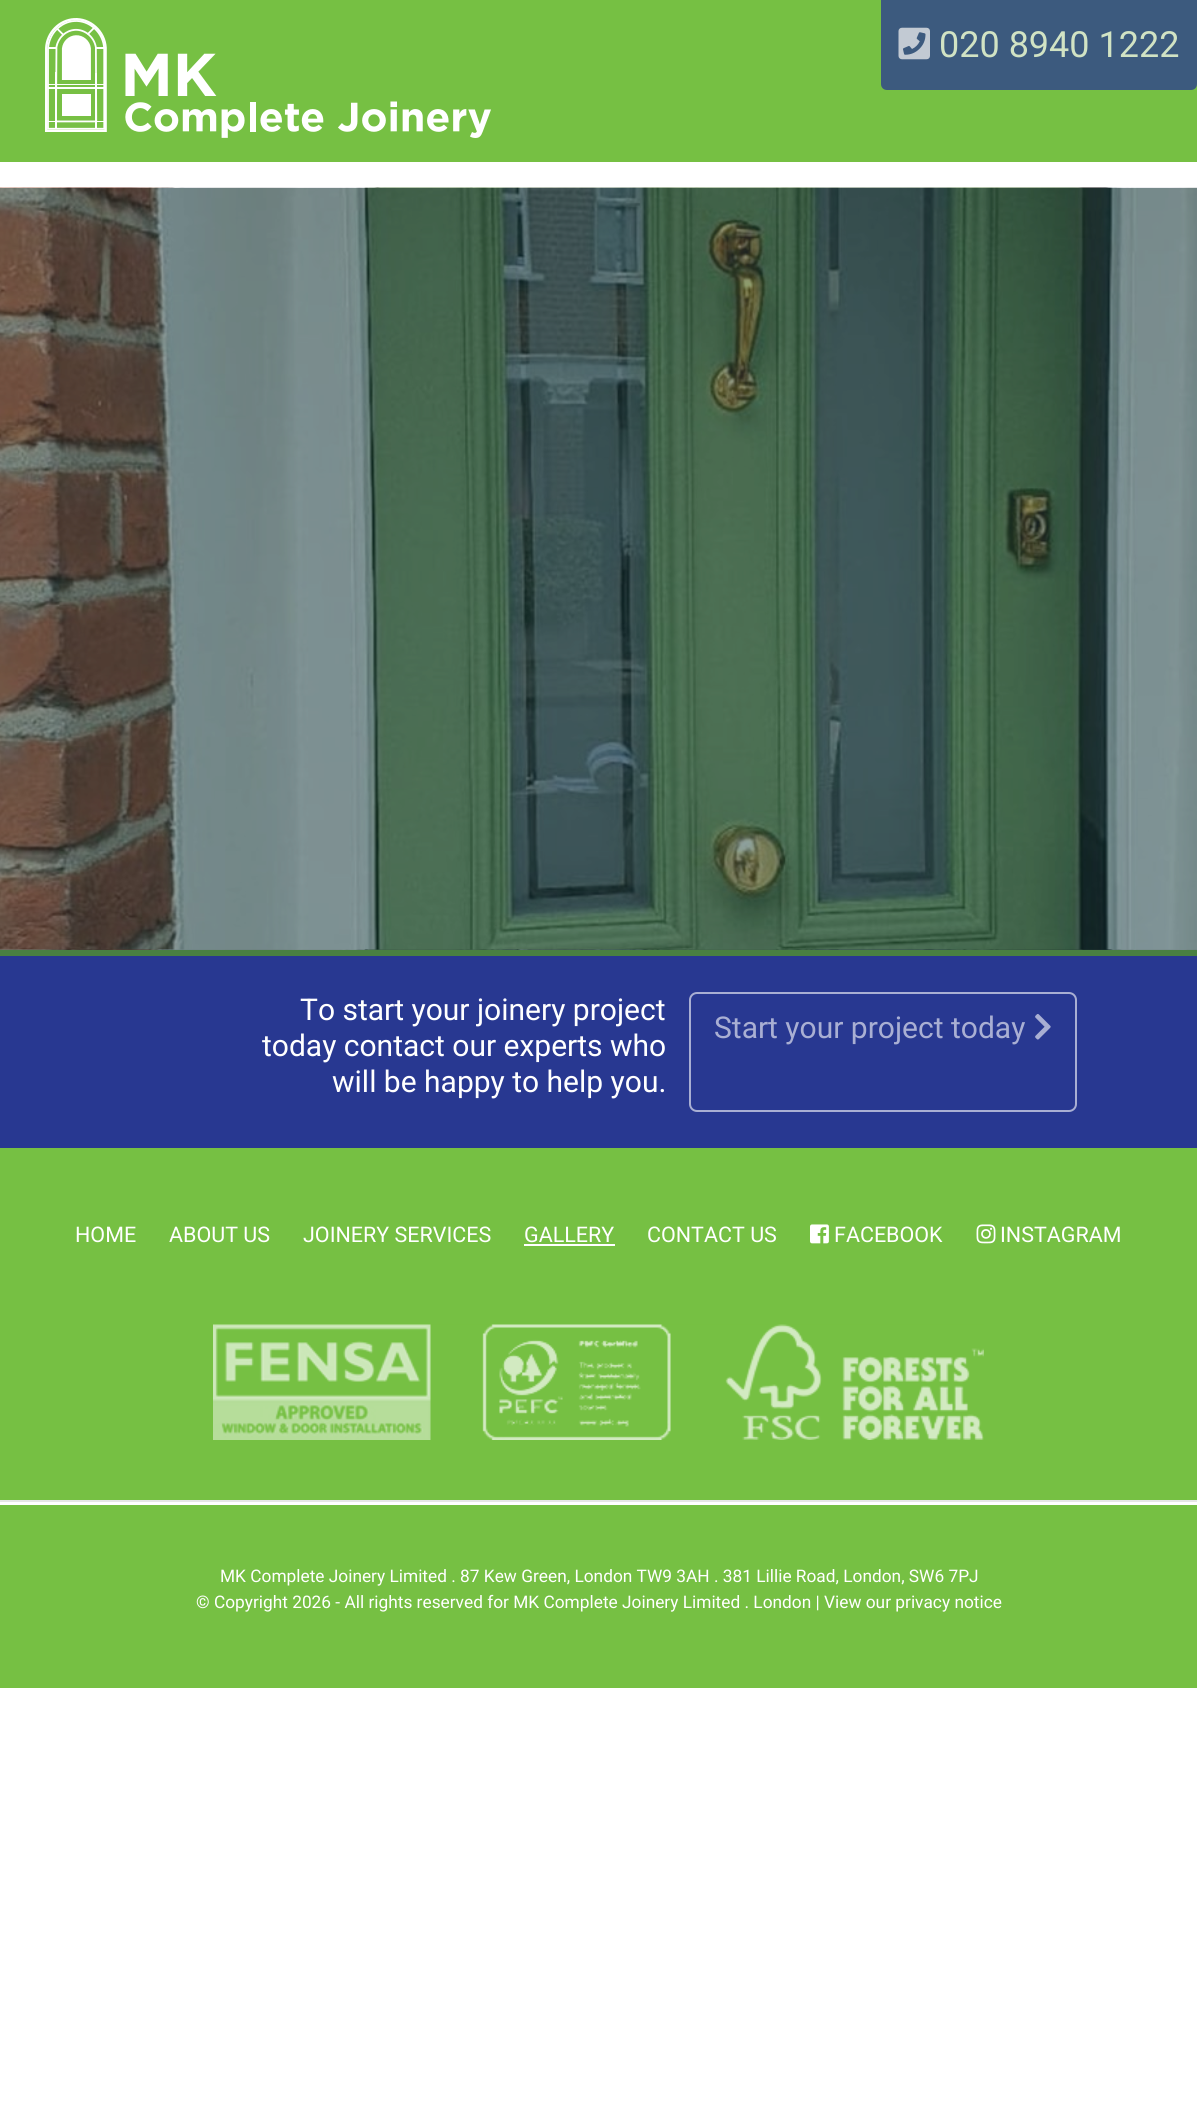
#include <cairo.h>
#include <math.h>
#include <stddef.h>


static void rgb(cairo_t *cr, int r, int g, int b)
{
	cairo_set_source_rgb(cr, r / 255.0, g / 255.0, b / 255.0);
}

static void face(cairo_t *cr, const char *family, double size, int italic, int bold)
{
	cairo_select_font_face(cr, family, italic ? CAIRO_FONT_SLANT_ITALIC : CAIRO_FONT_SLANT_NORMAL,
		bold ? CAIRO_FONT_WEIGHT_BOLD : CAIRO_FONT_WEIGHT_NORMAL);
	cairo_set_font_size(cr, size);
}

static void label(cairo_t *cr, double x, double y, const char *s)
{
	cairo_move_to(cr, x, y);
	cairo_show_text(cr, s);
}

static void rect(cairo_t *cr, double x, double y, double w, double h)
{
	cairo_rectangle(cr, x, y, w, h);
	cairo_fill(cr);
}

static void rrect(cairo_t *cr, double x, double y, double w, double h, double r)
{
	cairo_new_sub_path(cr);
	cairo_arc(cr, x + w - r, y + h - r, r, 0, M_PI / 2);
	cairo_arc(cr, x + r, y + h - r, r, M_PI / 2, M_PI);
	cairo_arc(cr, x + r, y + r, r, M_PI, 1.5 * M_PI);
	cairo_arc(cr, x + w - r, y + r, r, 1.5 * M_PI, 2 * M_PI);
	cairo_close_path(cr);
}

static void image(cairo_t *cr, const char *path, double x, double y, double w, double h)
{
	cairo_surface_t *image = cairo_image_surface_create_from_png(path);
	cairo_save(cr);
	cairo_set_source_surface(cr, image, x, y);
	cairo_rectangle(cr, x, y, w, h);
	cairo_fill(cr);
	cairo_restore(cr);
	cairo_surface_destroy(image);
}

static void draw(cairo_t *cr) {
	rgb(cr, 255, 255, 255);
	cairo_paint(cr);
	rgb(cr, 118, 192, 67);
	rect(cr, 0, 0, 1197, 162);
	image(cr, "image0.png", 45, 18, 446, 120);
	rgb(cr, 60, 90, 126);
	cairo_new_path(cr);
	cairo_move_to(cr, 881, 0);
	cairo_line_to(cr, 1197, 0);
	cairo_line_to(cr, 1197, 84);
	cairo_curve_to(cr, 1197, 87.5, 1194.5, 90, 1191, 90);
	cairo_line_to(cr, 887, 90);
	cairo_curve_to(cr, 883.5, 90, 881, 87.5, 881, 84);
	cairo_close_path(cr);
	cairo_fill(cr);
	image(cr, "image1.png", 898, 27, 32, 33);
	face(cr, "Roboto", 36, 0, 0);
	rgb(cr, 209, 227, 196);
	label(cr, 939, 57, "020 8940 1222");
	image(cr, "image2.png", 0, 187, 1197, 763);
	rgb(cr, 73, 128, 65);
	rect(cr, 0, 950, 1197, 6);
	rgb(cr, 40, 56, 145);
	rect(cr, 0, 956, 1197, 192);
	face(cr, "Roboto", 30, 0, 0);
	rgb(cr, 255, 255, 255);
	label(cr, 300, 1020, "To start your joinery project");
	label(cr, 262, 1056, "today contact our experts who");
	label(cr, 332, 1092, "will be happy to help you.");
	rrect(cr, 690, 993, 386, 118, 7);
	rgb(cr, 169, 175, 211);
	cairo_stroke(cr);
	label(cr, 714, 1038, "Start your project today");
	image(cr, "image3.png", 1035, 1014, 16, 26);
	rgb(cr, 118, 192, 67);
	rect(cr, 0, 1148, 1197, 540);
	face(cr, "Roboto", 21.5, 0, 0);
	rgb(cr, 255, 255, 255);
	label(cr, 75, 1242, "HOME");
	label(cr, 169, 1242, "ABOUT US");
	label(cr, 303, 1242, "JOINERY SERVICES");
	label(cr, 524, 1242, "GALLERY");
	rect(cr, 524, 1244, 91, 2);
	label(cr, 647, 1242, "CONTACT US");
	image(cr, "image4.png", 810, 1224, 19, 20);
	label(cr, 834, 1242, "FACEBOOK");
	image(cr, "image5.png", 976, 1224, 20, 20);
	label(cr, 1000, 1242, "INSTAGRAM");
	image(cr, "image6.png", 213, 1324, 771, 116);
	rect(cr, 0, 1502, 1197, 3);
	rgb(cr, 230, 230, 230);
	rect(cr, 0, 1500, 1197, 2);
	face(cr, "Roboto", 17.3, 0, 0);
	rgb(cr, 255, 255, 255);
	label(cr, 220, 1582, "MK Complete Joinery Limited . 87 Kew Green, London TW9 3AH . 381 Lillie Road, London, SW6 7PJ");
	label(cr, 196, 1608, "© Copyright 2026 - All rights reserved for MK Complete Joinery Limited . London | View our privacy notice");
}

int main(void) {
	cairo_surface_t *surface = cairo_image_surface_create(CAIRO_FORMAT_RGB24, 1197, 2101);
	cairo_t *cr = cairo_create(surface);
	cairo_font_options_t *options = cairo_font_options_create();
	cairo_font_options_set_hint_metrics(options, CAIRO_HINT_METRICS_OFF);
	cairo_font_options_set_hint_style(options, CAIRO_HINT_STYLE_NONE);
	cairo_set_font_options(cr, options);
	cairo_set_miter_limit(cr, 4);
	draw(cr);
	cairo_surface_write_to_png(surface, "render.png");
	cairo_font_options_destroy(options);
	cairo_destroy(cr);
	cairo_surface_destroy(surface);
	return 0;
}
